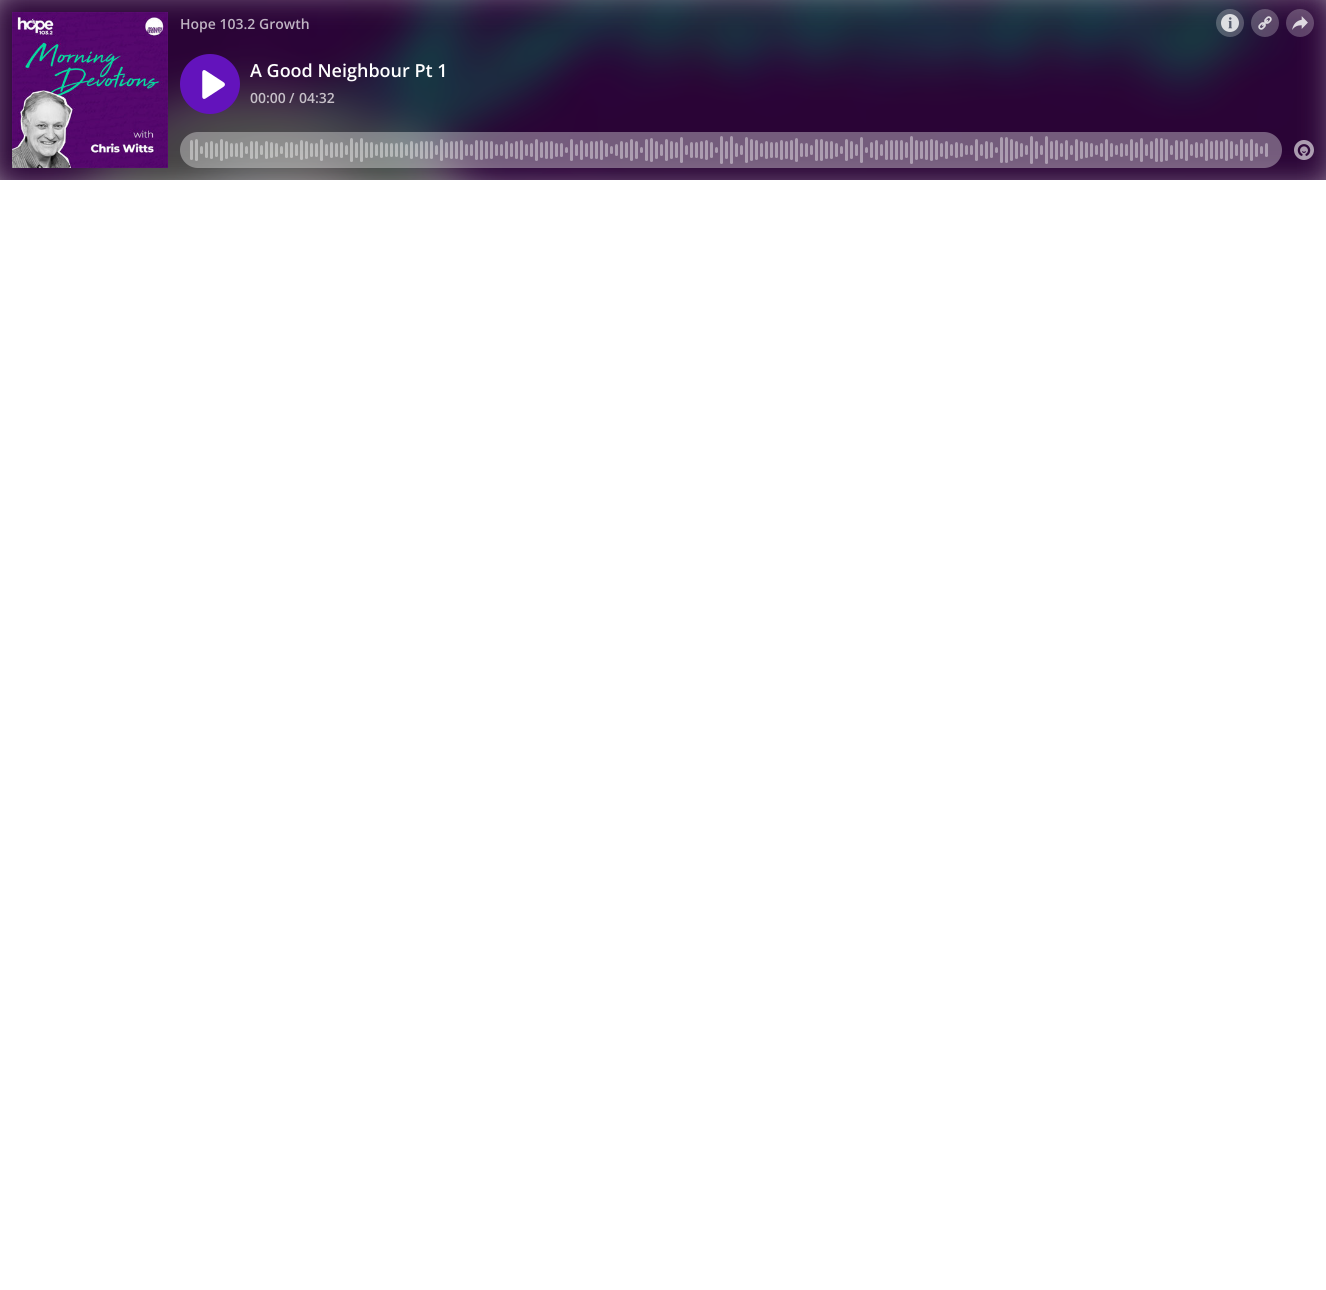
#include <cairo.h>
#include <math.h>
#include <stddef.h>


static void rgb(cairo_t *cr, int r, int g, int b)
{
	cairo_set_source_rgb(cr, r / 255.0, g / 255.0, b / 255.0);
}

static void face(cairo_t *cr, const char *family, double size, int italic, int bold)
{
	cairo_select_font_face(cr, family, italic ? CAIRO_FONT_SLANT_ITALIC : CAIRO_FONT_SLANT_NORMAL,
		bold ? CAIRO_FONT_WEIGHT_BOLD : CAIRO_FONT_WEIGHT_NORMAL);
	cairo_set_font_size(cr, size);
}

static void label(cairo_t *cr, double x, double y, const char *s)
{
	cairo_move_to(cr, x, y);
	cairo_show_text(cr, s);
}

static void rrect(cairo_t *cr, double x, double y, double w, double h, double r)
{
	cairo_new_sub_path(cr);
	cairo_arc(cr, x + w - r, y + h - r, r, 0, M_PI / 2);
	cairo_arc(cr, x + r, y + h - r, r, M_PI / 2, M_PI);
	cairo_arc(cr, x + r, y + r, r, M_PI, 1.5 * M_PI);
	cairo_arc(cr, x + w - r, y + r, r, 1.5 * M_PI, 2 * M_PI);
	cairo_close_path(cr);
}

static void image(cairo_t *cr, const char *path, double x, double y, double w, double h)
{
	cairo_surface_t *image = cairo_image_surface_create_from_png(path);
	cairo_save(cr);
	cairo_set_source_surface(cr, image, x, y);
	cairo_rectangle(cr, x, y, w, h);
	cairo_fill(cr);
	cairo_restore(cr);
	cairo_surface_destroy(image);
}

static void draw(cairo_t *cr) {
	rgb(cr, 255, 255, 255);
	cairo_paint(cr);
	image(cr, "image0.png", 0, 0, 1326, 180);
	image(cr, "image1.png", 12, 12, 156, 156);
	face(cr, "Open Sans SemiBold", 14, 0, 0);
	rgb(cr, 191, 180, 195);
	label(cr, 180, 29, "Hope 103.2 Growth");
	cairo_set_source_rgba(cr, 1, 1, 1, 0.24);
	cairo_new_path(cr);
	cairo_arc(cr, 1230, 23, 14, 0, 2 * M_PI);
	cairo_fill(cr);
	image(cr, "image2.png", 1221, 14, 18, 18);
	cairo_arc(cr, 1265, 23, 14, 0, 2 * M_PI);
	cairo_fill(cr);
	image(cr, "image3.png", 1258, 16, 14, 14);
	cairo_arc(cr, 1300, 23, 14, 0, 2 * M_PI);
	cairo_fill(cr);
	image(cr, "image4.png", 1292, 16, 16, 14);
	rgb(cr, 99, 19, 188);
	cairo_arc(cr, 210, 84, 30, 0, 2 * M_PI);
	cairo_fill(cr);
	image(cr, "image5.png", 202, 70, 23, 29);
	face(cr, "Open Sans SemiBold", 18, 0, 0);
	rgb(cr, 255, 255, 255);
	label(cr, 250, 77, "A Good Neighbour Pt 1");
	face(cr, "Open Sans SemiBold", 14, 0, 0);
	rgb(cr, 198, 192, 200);
	label(cr, 250, 103, "00:00");
	label(cr, 289, 103, "/");
	label(cr, 299, 103, "04:32");
	cairo_set_source_rgba(cr, 1, 1, 1, 0.35);
	rrect(cr, 180, 132, 1102, 36, 18);
	cairo_fill(cr);
	image(cr, "image6.png", 190, 136, 1018, 28);
	image(cr, "image7.png", 1210, 139, 58, 22);
	image(cr, "image8.png", 1294, 140, 20, 20);
}

int main(void) {
	cairo_surface_t *surface = cairo_image_surface_create(CAIRO_FORMAT_RGB24, 1326, 1290);
	cairo_t *cr = cairo_create(surface);
	cairo_font_options_t *options = cairo_font_options_create();
	cairo_font_options_set_hint_metrics(options, CAIRO_HINT_METRICS_OFF);
	cairo_font_options_set_hint_style(options, CAIRO_HINT_STYLE_NONE);
	cairo_set_font_options(cr, options);
	cairo_set_miter_limit(cr, 4);
	draw(cr);
	cairo_surface_write_to_png(surface, "render.png");
	cairo_font_options_destroy(options);
	cairo_destroy(cr);
	cairo_surface_destroy(surface);
	return 0;
}
